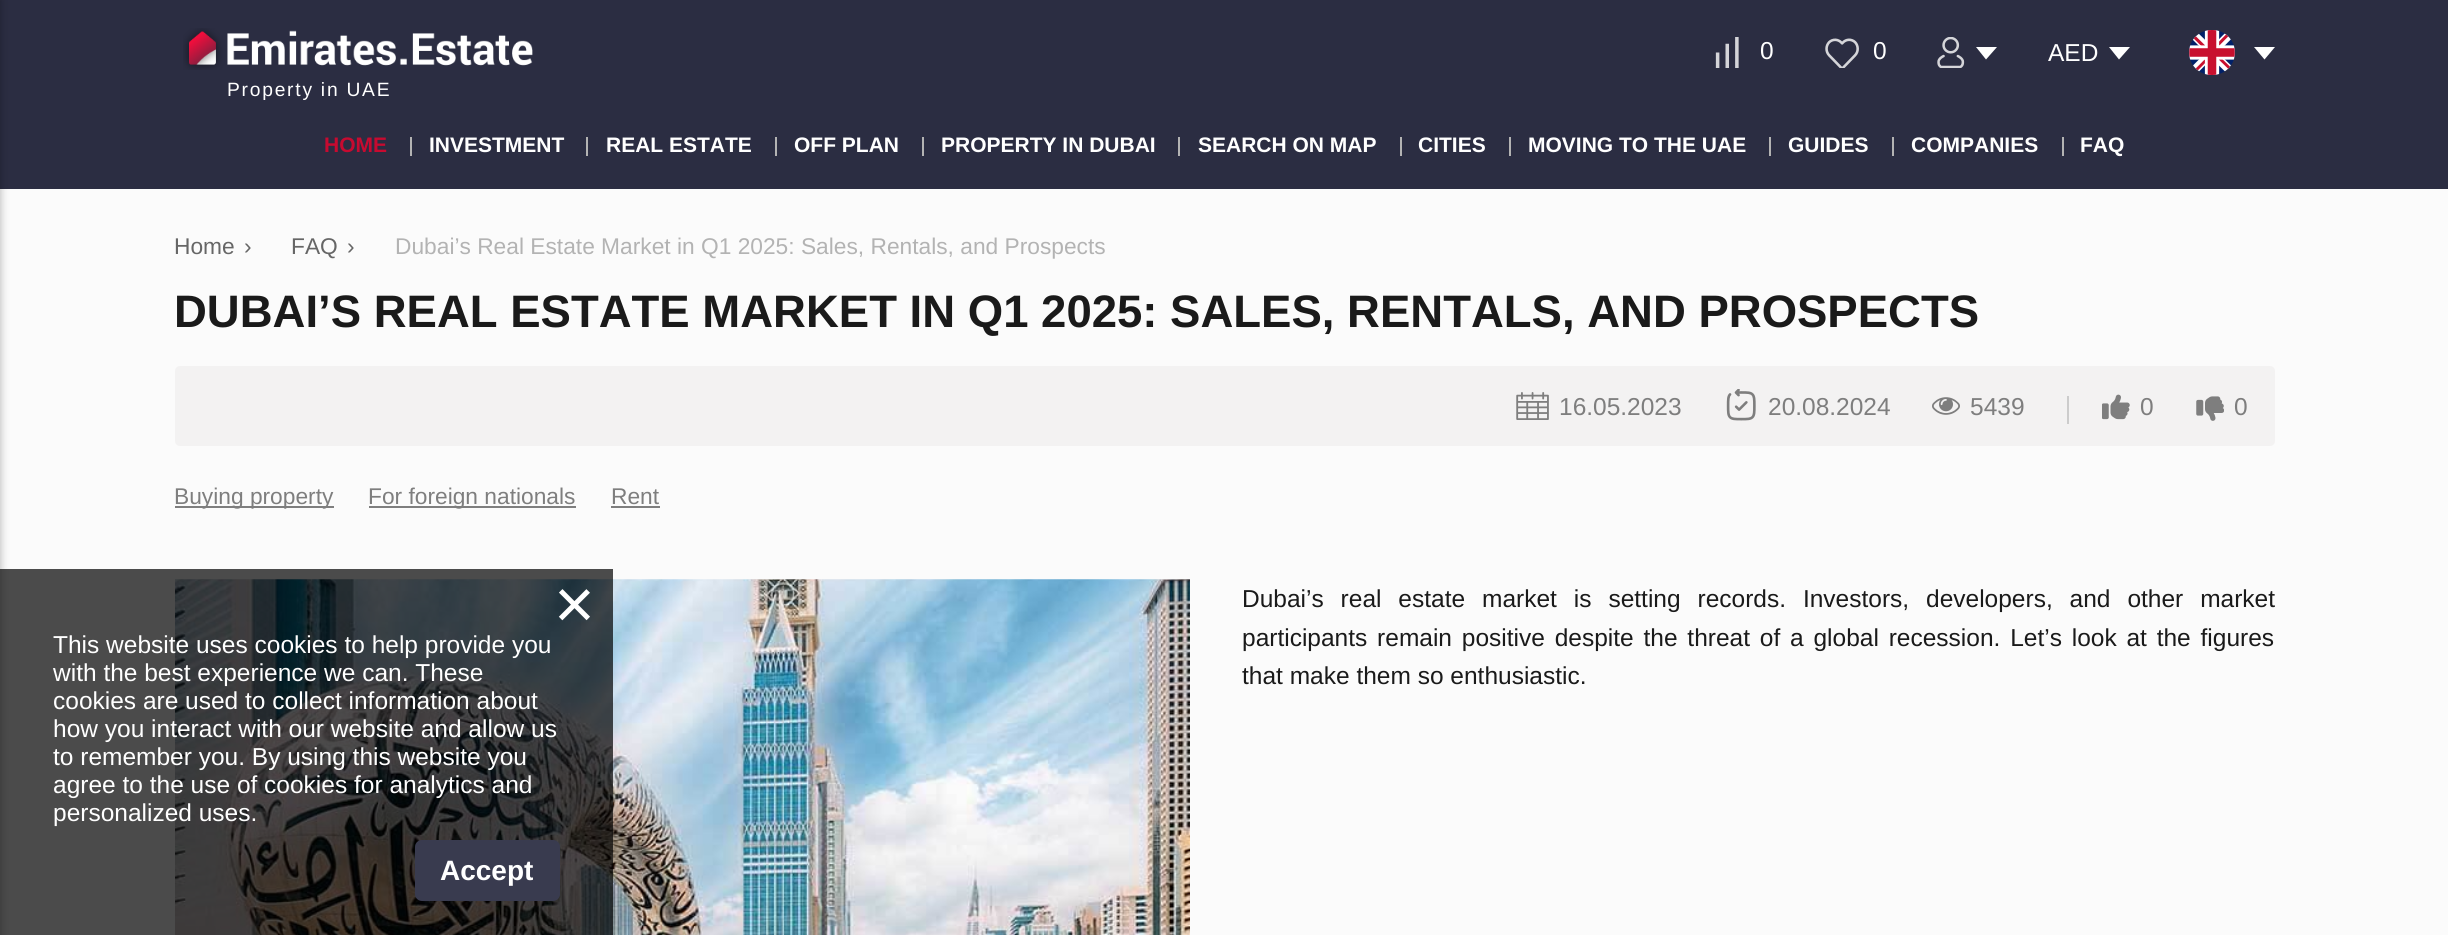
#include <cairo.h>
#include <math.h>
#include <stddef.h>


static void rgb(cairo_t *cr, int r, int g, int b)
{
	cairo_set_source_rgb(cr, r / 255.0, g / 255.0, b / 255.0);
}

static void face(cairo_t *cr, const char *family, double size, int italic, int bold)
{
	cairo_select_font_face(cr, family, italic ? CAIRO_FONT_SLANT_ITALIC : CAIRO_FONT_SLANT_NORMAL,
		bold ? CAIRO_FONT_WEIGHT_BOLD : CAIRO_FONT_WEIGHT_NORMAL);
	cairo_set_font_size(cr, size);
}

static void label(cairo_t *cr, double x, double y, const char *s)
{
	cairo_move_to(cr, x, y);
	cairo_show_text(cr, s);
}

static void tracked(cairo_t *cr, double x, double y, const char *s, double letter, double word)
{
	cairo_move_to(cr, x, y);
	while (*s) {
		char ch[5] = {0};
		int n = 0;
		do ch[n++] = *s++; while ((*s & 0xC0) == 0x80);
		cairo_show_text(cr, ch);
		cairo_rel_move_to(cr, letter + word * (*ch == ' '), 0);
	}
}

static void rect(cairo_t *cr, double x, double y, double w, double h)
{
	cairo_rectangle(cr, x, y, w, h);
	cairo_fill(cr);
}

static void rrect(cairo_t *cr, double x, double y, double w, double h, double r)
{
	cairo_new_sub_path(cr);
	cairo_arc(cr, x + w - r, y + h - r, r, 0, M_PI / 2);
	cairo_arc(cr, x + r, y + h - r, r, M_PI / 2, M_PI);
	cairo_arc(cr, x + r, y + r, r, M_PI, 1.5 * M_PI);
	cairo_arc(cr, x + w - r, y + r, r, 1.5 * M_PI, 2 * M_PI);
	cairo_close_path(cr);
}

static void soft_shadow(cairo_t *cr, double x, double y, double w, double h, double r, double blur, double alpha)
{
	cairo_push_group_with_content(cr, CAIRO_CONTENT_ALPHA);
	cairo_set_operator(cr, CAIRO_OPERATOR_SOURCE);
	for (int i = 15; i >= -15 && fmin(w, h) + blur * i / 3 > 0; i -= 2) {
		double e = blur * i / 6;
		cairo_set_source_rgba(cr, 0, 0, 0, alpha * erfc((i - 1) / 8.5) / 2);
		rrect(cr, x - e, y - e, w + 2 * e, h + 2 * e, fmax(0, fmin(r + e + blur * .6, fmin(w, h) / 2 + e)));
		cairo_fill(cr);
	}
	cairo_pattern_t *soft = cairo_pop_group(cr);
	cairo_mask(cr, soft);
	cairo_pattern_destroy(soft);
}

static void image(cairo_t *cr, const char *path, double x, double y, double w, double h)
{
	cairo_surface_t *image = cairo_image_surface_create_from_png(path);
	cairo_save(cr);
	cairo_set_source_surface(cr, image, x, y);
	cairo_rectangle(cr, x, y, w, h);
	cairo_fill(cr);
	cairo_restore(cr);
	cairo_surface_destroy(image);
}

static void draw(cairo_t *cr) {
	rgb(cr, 251, 251, 251);
	cairo_paint(cr);
	rgb(cr, 43, 45, 66);
	rect(cr, 0, 0, 2448, 189);
	rgb(cr, 0, 0, 0);
	soft_shadow(cr, -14, 0, 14, 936, 0, 4.5, 0.3);
	image(cr, "image0.png", 1715, 37, 24, 31);
	face(cr, "Liberation Sans", 24.5, 0, 0);
	rgb(cr, 255, 255, 255);
	label(cr, 1760, 59, "0");
	image(cr, "image1.png", 1825, 38, 34, 30);
	label(cr, 1873, 59, "0");
	image(cr, "image2.png", 1937, 37, 28, 31);
	cairo_new_path(cr);
	cairo_move_to(cr, 1976, 47);
	cairo_line_to(cr, 1997, 47);
	cairo_line_to(cr, 1986, 59.5);
	cairo_close_path(cr);
	cairo_fill(cr);
	label(cr, 2048, 61, "AED");
	cairo_new_path(cr);
	cairo_move_to(cr, 2109, 47);
	cairo_line_to(cr, 2130, 47);
	cairo_line_to(cr, 2119, 59.5);
	cairo_close_path(cr);
	cairo_fill(cr);
	image(cr, "image3.png", 2189, 30, 46, 45);
	cairo_new_path(cr);
	cairo_move_to(cr, 2254, 47);
	cairo_line_to(cr, 2275, 47);
	cairo_line_to(cr, 2264.5, 59.5);
	cairo_close_path(cr);
	cairo_fill(cr);
	image(cr, "image4.png", 183, 28, 350, 42);
	face(cr, "Liberation Sans", 19.25, 0, 0);
	tracked(cr, 227, 96, "Property in UAE", 1.75, 0);
	face(cr, "Liberation Sans", 21, 0, 1);
	rgb(cr, 199, 10, 48);
	label(cr, 324, 152, "HOME");
	rgb(cr, 179, 179, 179);
	rect(cr, 410, 137, 2, 19);
	rgb(cr, 255, 255, 255);
	label(cr, 429, 152, "INVESTMENT");
	rgb(cr, 179, 179, 179);
	rect(cr, 586, 137, 2, 19);
	rgb(cr, 255, 255, 255);
	label(cr, 606, 152, "REAL ESTATE");
	rgb(cr, 179, 179, 179);
	rect(cr, 775, 137, 2, 19);
	rgb(cr, 255, 255, 255);
	label(cr, 794, 152, "OFF PLAN");
	rgb(cr, 179, 179, 179);
	rect(cr, 922, 137, 2, 19);
	rgb(cr, 255, 255, 255);
	label(cr, 941, 152, "PROPERTY IN DUBAI");
	rgb(cr, 179, 179, 179);
	rect(cr, 1178, 137, 2, 19);
	rgb(cr, 255, 255, 255);
	label(cr, 1198, 152, "SEARCH ON MAP");
	rgb(cr, 179, 179, 179);
	rect(cr, 1400, 137, 2, 19);
	rgb(cr, 255, 255, 255);
	label(cr, 1418, 152, "CITIES");
	rgb(cr, 179, 179, 179);
	rect(cr, 1509, 137, 2, 19);
	rgb(cr, 255, 255, 255);
	label(cr, 1528, 152, "MOVING TO THE UAE");
	rgb(cr, 179, 179, 179);
	rect(cr, 1769, 137, 2, 19);
	rgb(cr, 255, 255, 255);
	label(cr, 1788, 152, "GUIDES");
	rgb(cr, 179, 179, 179);
	rect(cr, 1892, 137, 2, 19);
	rgb(cr, 255, 255, 255);
	label(cr, 1911, 152, "COMPANIES");
	rgb(cr, 179, 179, 179);
	rect(cr, 2062, 137, 2, 19);
	rgb(cr, 255, 255, 255);
	label(cr, 2080, 152, "FAQ");
	face(cr, "Liberation Sans", 22.75, 0, 0);
	rgb(cr, 102, 102, 102);
	label(cr, 174, 254, "Home");
	label(cr, 244, 254, "›");
	label(cr, 291, 254, "FAQ");
	label(cr, 347, 254, "›");
	rgb(cr, 179, 179, 179);
	label(cr, 395, 254, "Dubai’s Real Estate Market in Q1 2025: Sales, Rentals, and Prospects");
	face(cr, "Liberation Sans", 45.5, 0, 1);
	rgb(cr, 26, 26, 26);
	label(cr, 174, 327, "DUBAI’S REAL ESTATE MARKET IN Q1 2025: SALES, RENTALS, AND PROSPECTS");
	rgb(cr, 243, 242, 242);
	rrect(cr, 175, 366, 2100, 80, 5);
	cairo_fill(cr);
	image(cr, "image5.png", 1516, 392, 33, 28);
	face(cr, "Liberation Sans", 24.5, 0, 0);
	rgb(cr, 126, 126, 126);
	label(cr, 1559, 415, "16.05.2023");
	image(cr, "image6.png", 1726, 389, 30, 32);
	label(cr, 1768, 415, "20.08.2024");
	image(cr, "image7.png", 1932, 397, 28, 18);
	label(cr, 1970, 415, "5439");
	rgb(cr, 204, 204, 204);
	rect(cr, 2067, 396, 2, 28);
	image(cr, "image8.png", 2102, 394, 28, 26);
	rgb(cr, 126, 126, 126);
	label(cr, 2140, 415, "0");
	image(cr, "image9.png", 2196, 396, 28, 25);
	label(cr, 2234, 415, "0");
	rect(cr, 175, 506, 159, 2);
	face(cr, "Liberation Sans", 22.75, 0, 0);
	label(cr, 174, 504, "Buying property");
	rect(cr, 369, 506, 207, 2);
	label(cr, 368, 504, "For foreign nationals");
	label(cr, 611, 504, "Rent");
	rect(cr, 611, 506, 49, 2);
	image(cr, "image10.png", 175, 579, 1015, 356);
	face(cr, "Liberation Sans", 24.5, 0, 0);
	rgb(cr, 26, 26, 26);
	tracked(cr, 1242, 607, "Dubai’s real estate market is setting records. Investors, developers, and other market", 0, 10.1);
	tracked(cr, 1242, 646, "participants remain positive despite the threat of a global recession. Let’s look at the figures", 0, 3);
	label(cr, 1242, 684, "that make them so enthusiastic.");
	cairo_set_source_rgba(cr, 0, 0, 0, 0.7);
	rect(cr, 0, 569, 613, 366);
	face(cr, "Liberation Sans", 70, 0, 0);
	rgb(cr, 255, 255, 255);
	label(cr, 554, 628, "×");
	face(cr, "Liberation Sans", 24.5, 0, 0);
	label(cr, 53, 653, "This website uses cookies to help provide you");
	label(cr, 53, 681, "with the best experience we can. These");
	label(cr, 53, 709, "cookies are used to collect information about");
	label(cr, 53, 737, "how you interact with our website and allow us");
	label(cr, 53, 765, "to remember you. By using this website you");
	label(cr, 53, 793, "agree to the use of cookies for analytics and");
	label(cr, 53, 821, "personalized uses.");
	rgb(cr, 57, 59, 79);
	rrect(cr, 415, 840, 145, 61, 7);
	cairo_fill(cr);
	face(cr, "Liberation Sans", 28, 0, 1);
	rgb(cr, 255, 255, 255);
	label(cr, 440, 880, "Accept");
}

int main(void) {
	cairo_surface_t *surface = cairo_image_surface_create(CAIRO_FORMAT_RGB24, 2448, 935);
	cairo_t *cr = cairo_create(surface);
	cairo_font_options_t *options = cairo_font_options_create();
	cairo_font_options_set_hint_metrics(options, CAIRO_HINT_METRICS_OFF);
	cairo_font_options_set_hint_style(options, CAIRO_HINT_STYLE_NONE);
	cairo_set_font_options(cr, options);
	cairo_set_miter_limit(cr, 4);
	draw(cr);
	cairo_surface_write_to_png(surface, "render.png");
	cairo_font_options_destroy(options);
	cairo_destroy(cr);
	cairo_surface_destroy(surface);
	return 0;
}
